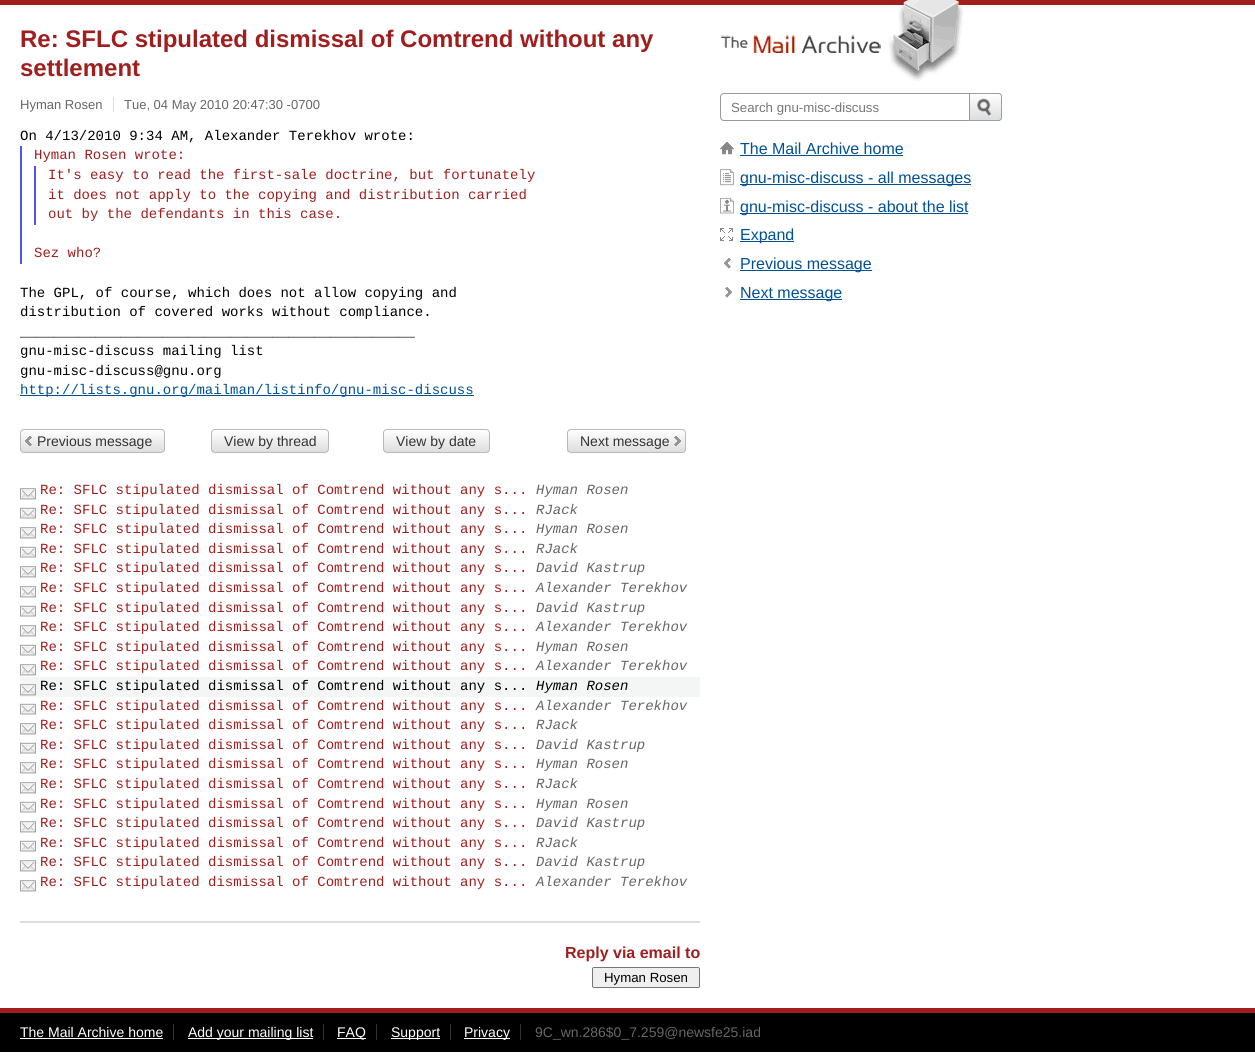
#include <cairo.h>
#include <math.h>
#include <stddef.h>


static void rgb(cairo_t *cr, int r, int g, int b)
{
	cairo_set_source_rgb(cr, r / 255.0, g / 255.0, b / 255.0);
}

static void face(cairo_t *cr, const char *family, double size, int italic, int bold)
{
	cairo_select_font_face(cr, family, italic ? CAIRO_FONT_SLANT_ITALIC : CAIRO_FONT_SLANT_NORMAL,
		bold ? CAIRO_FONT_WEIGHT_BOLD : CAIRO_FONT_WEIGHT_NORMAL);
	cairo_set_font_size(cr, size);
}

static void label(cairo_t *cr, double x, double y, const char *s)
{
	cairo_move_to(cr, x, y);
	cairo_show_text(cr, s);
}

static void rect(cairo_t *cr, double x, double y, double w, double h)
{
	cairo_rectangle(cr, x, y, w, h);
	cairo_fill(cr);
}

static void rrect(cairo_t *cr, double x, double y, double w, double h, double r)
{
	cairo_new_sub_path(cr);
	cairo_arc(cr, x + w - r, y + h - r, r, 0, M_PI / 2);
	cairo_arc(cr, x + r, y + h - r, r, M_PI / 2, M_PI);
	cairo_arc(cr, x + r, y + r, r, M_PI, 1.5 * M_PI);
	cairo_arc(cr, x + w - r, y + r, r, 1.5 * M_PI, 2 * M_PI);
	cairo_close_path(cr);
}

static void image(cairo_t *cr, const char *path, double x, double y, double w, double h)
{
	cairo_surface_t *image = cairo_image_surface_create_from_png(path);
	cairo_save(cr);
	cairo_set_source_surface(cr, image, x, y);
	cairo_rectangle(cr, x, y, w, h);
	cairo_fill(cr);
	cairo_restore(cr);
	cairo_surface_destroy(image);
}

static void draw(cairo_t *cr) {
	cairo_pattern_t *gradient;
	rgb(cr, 255, 255, 255);
	cairo_paint(cr);
	rgb(cr, 160, 30, 30);
	rect(cr, 0, 0, 1255, 5);
	face(cr, "Liberation Sans", 24, 0, 1);
	label(cr, 20, 47, "Re: SFLC stipulated dismissal of Comtrend without any");
	label(cr, 20, 76, "settlement");
	face(cr, "Liberation Sans", 13, 0, 0);
	rgb(cr, 102, 102, 102);
	label(cr, 20, 109, "Hyman Rosen");
	rgb(cr, 221, 221, 221);
	rect(cr, 113, 97, 1, 15);
	rgb(cr, 102, 102, 102);
	label(cr, 124, 109, "Tue, 04 May 2010 20:47:30 -0700");
	face(cr, "Liberation Mono", 14, 0, 0);
	rgb(cr, 0, 0, 0);
	label(cr, 20, 140, "On 4/13/2010 9:34 AM, Alexander Terekhov wrote:");
	rgb(cr, 85, 85, 238);
	rect(cr, 20, 146, 2, 118);
	rgb(cr, 160, 30, 30);
	label(cr, 34, 159, "Hyman Rosen wrote:");
	rgb(cr, 85, 85, 238);
	rect(cr, 34, 166, 2, 59);
	rgb(cr, 160, 30, 30);
	label(cr, 48, 179, "It's easy to read the first-sale doctrine, but fortunately");
	label(cr, 48, 199, "it does not apply to the copying and distribution carried");
	label(cr, 48, 218, "out by the defendants in this case.");
	label(cr, 34, 257, "Sez who?");
	rgb(cr, 0, 0, 0);
	label(cr, 20, 297, "The GPL, of course, which does not allow copying and");
	label(cr, 20, 316, "distribution of covered works without compliance.");
	label(cr, 20, 336, "_______________________________________________");
	label(cr, 20, 355, "gnu-misc-discuss mailing list");
	label(cr, 20, 375, "gnu-misc-discuss@gnu.org");
	rgb(cr, 0, 80, 150);
	rect(cr, 20, 395, 454, 1);
	label(cr, 20, 394, "http://lists.gnu.org/mailman/listinfo/gnu-misc-discuss");
	image(cr, "image0.png", 20, 429, 145, 24);
	rrect(cr, 20.5, 429.5, 144, 23, 3.5);
	rgb(cr, 187, 187, 187);
	cairo_set_line_width(cr, 1);
	cairo_stroke(cr);
	face(cr, "Liberation Sans", 14, 0, 0);
	rgb(cr, 51, 51, 51);
	label(cr, 37, 446, "Previous message");
	cairo_save(cr);
	rrect(cr, 211, 429, 118, 24, 4);
	cairo_clip(cr);
	gradient = cairo_pattern_create_linear(270, 430, 270, 452);
	cairo_pattern_add_color_stop_rgba(gradient, 0, 1, 1, 1, 1);
	cairo_pattern_add_color_stop_rgba(gradient, 1, 0.867, 0.867, 0.867, 1);
	cairo_set_source(cr, gradient);
	cairo_pattern_destroy(gradient);
	rect(cr, 211, 430, 118, 22);
	cairo_restore(cr);
	rrect(cr, 211.5, 429.5, 117, 23, 3.5);
	rgb(cr, 187, 187, 187);
	cairo_stroke(cr);
	rgb(cr, 51, 51, 51);
	label(cr, 224, 446, "View by thread");
	cairo_save(cr);
	rrect(cr, 383, 429, 107, 24, 4);
	cairo_clip(cr);
	gradient = cairo_pattern_create_linear(437, 430, 437, 452);
	cairo_pattern_add_color_stop_rgba(gradient, 0, 1, 1, 1, 1);
	cairo_pattern_add_color_stop_rgba(gradient, 1, 0.867, 0.867, 0.867, 1);
	cairo_set_source(cr, gradient);
	cairo_pattern_destroy(gradient);
	rect(cr, 383, 430, 107, 22);
	cairo_restore(cr);
	rrect(cr, 383.5, 429.5, 106, 23, 3.5);
	rgb(cr, 187, 187, 187);
	cairo_stroke(cr);
	rgb(cr, 51, 51, 51);
	label(cr, 396, 446, "View by date");
	image(cr, "image1.png", 567, 429, 119, 24);
	rrect(cr, 567.5, 429.5, 118, 23, 3.5);
	rgb(cr, 187, 187, 187);
	cairo_stroke(cr);
	rgb(cr, 51, 51, 51);
	label(cr, 580, 446, "Next message");
	image(cr, "image2.png", 20, 488, 16, 12);
	face(cr, "Liberation Mono", 14, 0, 0);
	rgb(cr, 160, 30, 30);
	label(cr, 40, 494, "Re: SFLC stipulated dismissal of Comtrend without any s...");
	face(cr, "Liberation Mono", 14, 1, 0);
	rgb(cr, 102, 102, 102);
	label(cr, 536, 494, "Hyman Rosen");
	image(cr, "image3.png", 20, 507, 16, 12);
	face(cr, "Liberation Mono", 14, 0, 0);
	rgb(cr, 160, 30, 30);
	label(cr, 40, 514, "Re: SFLC stipulated dismissal of Comtrend without any s...");
	face(cr, "Liberation Mono", 14, 1, 0);
	rgb(cr, 102, 102, 102);
	label(cr, 536, 514, "RJack");
	image(cr, "image2.png", 20, 527, 16, 12);
	face(cr, "Liberation Mono", 14, 0, 0);
	rgb(cr, 160, 30, 30);
	label(cr, 40, 533, "Re: SFLC stipulated dismissal of Comtrend without any s...");
	face(cr, "Liberation Mono", 14, 1, 0);
	rgb(cr, 102, 102, 102);
	label(cr, 536, 533, "Hyman Rosen");
	image(cr, "image3.png", 20, 546, 16, 12);
	face(cr, "Liberation Mono", 14, 0, 0);
	rgb(cr, 160, 30, 30);
	label(cr, 40, 553, "Re: SFLC stipulated dismissal of Comtrend without any s...");
	face(cr, "Liberation Mono", 14, 1, 0);
	rgb(cr, 102, 102, 102);
	label(cr, 536, 553, "RJack");
	image(cr, "image2.png", 20, 566, 16, 12);
	face(cr, "Liberation Mono", 14, 0, 0);
	rgb(cr, 160, 30, 30);
	label(cr, 40, 572, "Re: SFLC stipulated dismissal of Comtrend without any s...");
	face(cr, "Liberation Mono", 14, 1, 0);
	rgb(cr, 102, 102, 102);
	label(cr, 536, 572, "David Kastrup");
	image(cr, "image2.png", 20, 586, 16, 12);
	face(cr, "Liberation Mono", 14, 0, 0);
	rgb(cr, 160, 30, 30);
	label(cr, 40, 592, "Re: SFLC stipulated dismissal of Comtrend without any s...");
	face(cr, "Liberation Mono", 14, 1, 0);
	rgb(cr, 102, 102, 102);
	label(cr, 536, 592, "Alexander Terekhov");
	image(cr, "image3.png", 20, 605, 16, 12);
	face(cr, "Liberation Mono", 14, 0, 0);
	rgb(cr, 160, 30, 30);
	label(cr, 40, 612, "Re: SFLC stipulated dismissal of Comtrend without any s...");
	face(cr, "Liberation Mono", 14, 1, 0);
	rgb(cr, 102, 102, 102);
	label(cr, 536, 612, "David Kastrup");
	image(cr, "image2.png", 20, 625, 16, 12);
	face(cr, "Liberation Mono", 14, 0, 0);
	rgb(cr, 160, 30, 30);
	label(cr, 40, 631, "Re: SFLC stipulated dismissal of Comtrend without any s...");
	face(cr, "Liberation Mono", 14, 1, 0);
	rgb(cr, 102, 102, 102);
	label(cr, 536, 631, "Alexander Terekhov");
	image(cr, "image3.png", 20, 644, 16, 12);
	face(cr, "Liberation Mono", 14, 0, 0);
	rgb(cr, 160, 30, 30);
	label(cr, 40, 651, "Re: SFLC stipulated dismissal of Comtrend without any s...");
	face(cr, "Liberation Mono", 14, 1, 0);
	rgb(cr, 102, 102, 102);
	label(cr, 536, 651, "Hyman Rosen");
	image(cr, "image2.png", 20, 664, 16, 12);
	face(cr, "Liberation Mono", 14, 0, 0);
	rgb(cr, 160, 30, 30);
	label(cr, 40, 670, "Re: SFLC stipulated dismissal of Comtrend without any s...");
	face(cr, "Liberation Mono", 14, 1, 0);
	rgb(cr, 102, 102, 102);
	label(cr, 536, 670, "Alexander Terekhov");
	rgb(cr, 244, 245, 245);
	rect(cr, 20, 677, 680, 20);
	image(cr, "image4.png", 20, 684, 16, 12);
	face(cr, "Liberation Mono", 14, 0, 0);
	rgb(cr, 0, 0, 0);
	label(cr, 40, 690, "Re: SFLC stipulated dismissal of Comtrend without any s...");
	face(cr, "Liberation Mono", 14, 1, 0);
	label(cr, 536, 690, "Hyman Rosen");
	image(cr, "image3.png", 20, 703, 16, 12);
	face(cr, "Liberation Mono", 14, 0, 0);
	rgb(cr, 160, 30, 30);
	label(cr, 40, 710, "Re: SFLC stipulated dismissal of Comtrend without any s...");
	face(cr, "Liberation Mono", 14, 1, 0);
	rgb(cr, 102, 102, 102);
	label(cr, 536, 710, "Alexander Terekhov");
	image(cr, "image2.png", 20, 723, 16, 12);
	face(cr, "Liberation Mono", 14, 0, 0);
	rgb(cr, 160, 30, 30);
	label(cr, 40, 729, "Re: SFLC stipulated dismissal of Comtrend without any s...");
	face(cr, "Liberation Mono", 14, 1, 0);
	rgb(cr, 102, 102, 102);
	label(cr, 536, 729, "RJack");
	image(cr, "image3.png", 20, 742, 16, 12);
	face(cr, "Liberation Mono", 14, 0, 0);
	rgb(cr, 160, 30, 30);
	label(cr, 40, 749, "Re: SFLC stipulated dismissal of Comtrend without any s...");
	face(cr, "Liberation Mono", 14, 1, 0);
	rgb(cr, 102, 102, 102);
	label(cr, 536, 749, "David Kastrup");
	image(cr, "image2.png", 20, 762, 16, 12);
	face(cr, "Liberation Mono", 14, 0, 0);
	rgb(cr, 160, 30, 30);
	label(cr, 40, 768, "Re: SFLC stipulated dismissal of Comtrend without any s...");
	face(cr, "Liberation Mono", 14, 1, 0);
	rgb(cr, 102, 102, 102);
	label(cr, 536, 768, "Hyman Rosen");
	image(cr, "image2.png", 20, 782, 16, 12);
	face(cr, "Liberation Mono", 14, 0, 0);
	rgb(cr, 160, 30, 30);
	label(cr, 40, 788, "Re: SFLC stipulated dismissal of Comtrend without any s...");
	face(cr, "Liberation Mono", 14, 1, 0);
	rgb(cr, 102, 102, 102);
	label(cr, 536, 788, "RJack");
	image(cr, "image3.png", 20, 801, 16, 12);
	face(cr, "Liberation Mono", 14, 0, 0);
	rgb(cr, 160, 30, 30);
	label(cr, 40, 808, "Re: SFLC stipulated dismissal of Comtrend without any s...");
	face(cr, "Liberation Mono", 14, 1, 0);
	rgb(cr, 102, 102, 102);
	label(cr, 536, 808, "Hyman Rosen");
	image(cr, "image2.png", 20, 821, 16, 12);
	face(cr, "Liberation Mono", 14, 0, 0);
	rgb(cr, 160, 30, 30);
	label(cr, 40, 827, "Re: SFLC stipulated dismissal of Comtrend without any s...");
	face(cr, "Liberation Mono", 14, 1, 0);
	rgb(cr, 102, 102, 102);
	label(cr, 536, 827, "David Kastrup");
	image(cr, "image3.png", 20, 840, 16, 12);
	face(cr, "Liberation Mono", 14, 0, 0);
	rgb(cr, 160, 30, 30);
	label(cr, 40, 847, "Re: SFLC stipulated dismissal of Comtrend without any s...");
	face(cr, "Liberation Mono", 14, 1, 0);
	rgb(cr, 102, 102, 102);
	label(cr, 536, 847, "RJack");
	image(cr, "image2.png", 20, 860, 16, 12);
	face(cr, "Liberation Mono", 14, 0, 0);
	rgb(cr, 160, 30, 30);
	label(cr, 40, 866, "Re: SFLC stipulated dismissal of Comtrend without any s...");
	face(cr, "Liberation Mono", 14, 1, 0);
	rgb(cr, 102, 102, 102);
	label(cr, 536, 866, "David Kastrup");
	image(cr, "image2.png", 20, 880, 16, 12);
	face(cr, "Liberation Mono", 14, 0, 0);
	rgb(cr, 160, 30, 30);
	label(cr, 40, 886, "Re: SFLC stipulated dismissal of Comtrend without any s...");
	face(cr, "Liberation Mono", 14, 1, 0);
	rgb(cr, 102, 102, 102);
	label(cr, 536, 886, "Alexander Terekhov");
	rgb(cr, 221, 221, 221);
	rect(cr, 20, 921, 680, 2);
	face(cr, "Liberation Sans", 16, 0, 1);
	rgb(cr, 160, 30, 30);
	label(cr, 565, 958, "Reply via email to");
	rgb(cr, 239, 239, 239);
	rrect(cr, 592.5, 967.5, 107, 20, 1.5);
	cairo_fill_preserve(cr);
	rgb(cr, 118, 118, 118);
	cairo_stroke(cr);
	face(cr, "Liberation Sans", 13.25, 0, 0);
	rgb(cr, 0, 0, 0);
	label(cr, 604, 982, "Hyman Rosen");
	image(cr, "image5.png", 721, 0, 242, 81);
	cairo_new_path(cr);
	cairo_move_to(cr, 724, 93.5);
	cairo_line_to(cr, 969.5, 93.5);
	cairo_line_to(cr, 969.5, 120.5);
	cairo_line_to(cr, 724, 120.5);
	cairo_curve_to(cr, 722, 120.5, 720.5, 119, 720.5, 117);
	cairo_line_to(cr, 720.5, 97);
	cairo_curve_to(cr, 720.5, 95, 722, 93.5, 724, 93.5);
	cairo_close_path(cr);
	rgb(cr, 153, 153, 153);
	cairo_stroke(cr);
	rgb(cr, 119, 119, 119);
	label(cr, 731, 112, "Search gnu-misc-discuss");
	image(cr, "image6.png", 970, 93, 32, 28);
	image(cr, "image7.png", 720, 142, 14, 13);
	face(cr, "Liberation Sans", 16, 0, 0);
	rgb(cr, 0, 80, 150);
	label(cr, 740, 154, "The Mail Archive home");
	rect(cr, 740, 155, 163, 1);
	image(cr, "image8.png", 720, 169, 14, 17);
	rect(cr, 740, 184, 231, 1);
	label(cr, 740, 183, "gnu-misc-discuss - all messages");
	image(cr, "image9.png", 720, 197, 14, 17);
	rect(cr, 740, 213, 228, 1);
	label(cr, 740, 212, "gnu-misc-discuss - about the list");
	image(cr, "image10.png", 720, 228, 13, 13);
	rect(cr, 740, 241, 54, 1);
	label(cr, 740, 240, "Expand");
	image(cr, "image11.png", 724, 258, 7, 11);
	rect(cr, 740, 270, 132, 1);
	label(cr, 740, 269, "Previous message");
	image(cr, "image12.png", 725, 287, 7, 11);
	rect(cr, 740, 299, 102, 1);
	label(cr, 740, 298, "Next message");
	rgb(cr, 0, 0, 0);
	rect(cr, 0, 1013, 1255, 39);
	rgb(cr, 160, 30, 30);
	rect(cr, 0, 1008, 1255, 5);
	face(cr, "Liberation Sans", 14, 0, 0);
	rgb(cr, 255, 255, 255);
	label(cr, 20, 1037, "The Mail Archive home");
	rgb(cr, 51, 51, 51);
	rect(cr, 173, 1024, 1, 16);
	rgb(cr, 255, 255, 255);
	rect(cr, 20, 1038, 143, 1);
	rect(cr, 188, 1038, 125, 1);
	label(cr, 188, 1037, "Add your mailing list");
	rgb(cr, 51, 51, 51);
	rect(cr, 323, 1024, 1, 16);
	rgb(cr, 255, 255, 255);
	rect(cr, 337, 1038, 29, 1);
	label(cr, 337, 1037, "FAQ");
	rgb(cr, 51, 51, 51);
	rect(cr, 376, 1024, 1, 16);
	rgb(cr, 255, 255, 255);
	rect(cr, 391, 1038, 49, 1);
	label(cr, 391, 1037, "Support");
	rgb(cr, 51, 51, 51);
	rect(cr, 450, 1024, 1, 16);
	rgb(cr, 255, 255, 255);
	rect(cr, 464, 1038, 46, 1);
	label(cr, 464, 1037, "Privacy");
	rgb(cr, 51, 51, 51);
	rect(cr, 520, 1024, 1, 16);
	rgb(cr, 102, 102, 102);
	label(cr, 535, 1037, "9C_wn.286$0_7.259@newsfe25.iad");
}

int main(void) {
	cairo_surface_t *surface = cairo_image_surface_create(CAIRO_FORMAT_RGB24, 1255, 1064);
	cairo_t *cr = cairo_create(surface);
	cairo_font_options_t *options = cairo_font_options_create();
	cairo_font_options_set_hint_metrics(options, CAIRO_HINT_METRICS_OFF);
	cairo_font_options_set_hint_style(options, CAIRO_HINT_STYLE_NONE);
	cairo_set_font_options(cr, options);
	cairo_set_miter_limit(cr, 4);
	draw(cr);
	cairo_surface_write_to_png(surface, "render.png");
	cairo_font_options_destroy(options);
	cairo_destroy(cr);
	cairo_surface_destroy(surface);
	return 0;
}
